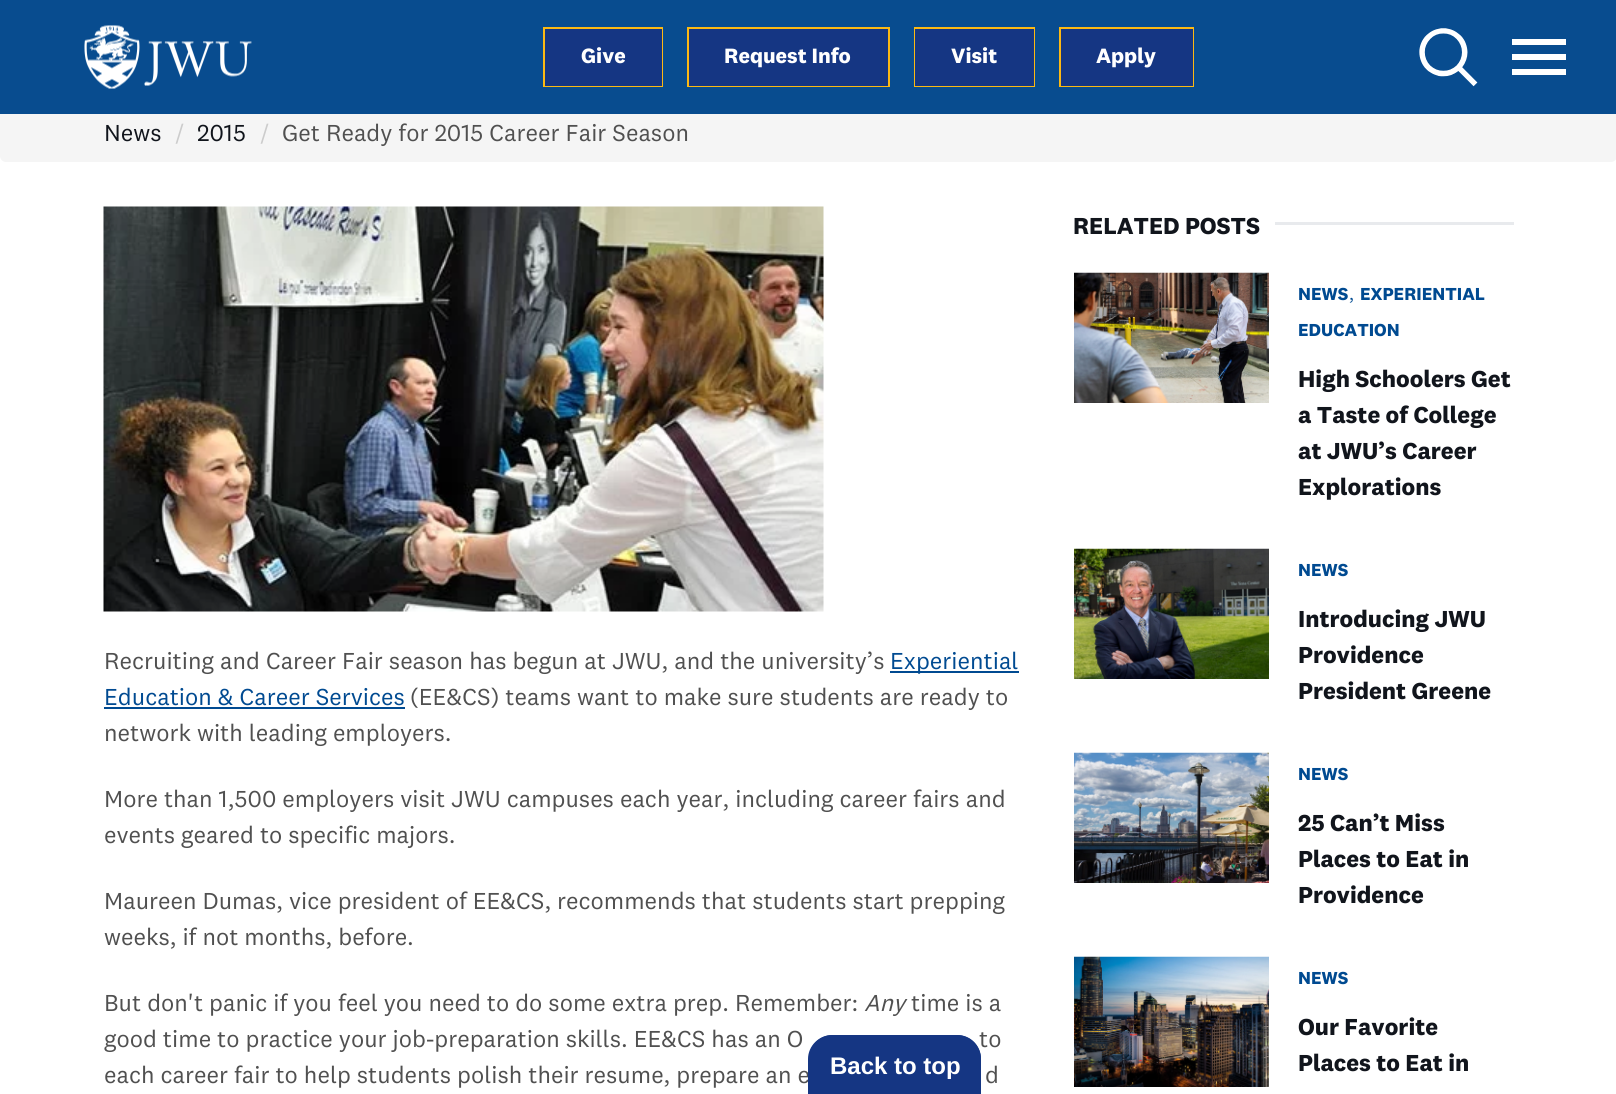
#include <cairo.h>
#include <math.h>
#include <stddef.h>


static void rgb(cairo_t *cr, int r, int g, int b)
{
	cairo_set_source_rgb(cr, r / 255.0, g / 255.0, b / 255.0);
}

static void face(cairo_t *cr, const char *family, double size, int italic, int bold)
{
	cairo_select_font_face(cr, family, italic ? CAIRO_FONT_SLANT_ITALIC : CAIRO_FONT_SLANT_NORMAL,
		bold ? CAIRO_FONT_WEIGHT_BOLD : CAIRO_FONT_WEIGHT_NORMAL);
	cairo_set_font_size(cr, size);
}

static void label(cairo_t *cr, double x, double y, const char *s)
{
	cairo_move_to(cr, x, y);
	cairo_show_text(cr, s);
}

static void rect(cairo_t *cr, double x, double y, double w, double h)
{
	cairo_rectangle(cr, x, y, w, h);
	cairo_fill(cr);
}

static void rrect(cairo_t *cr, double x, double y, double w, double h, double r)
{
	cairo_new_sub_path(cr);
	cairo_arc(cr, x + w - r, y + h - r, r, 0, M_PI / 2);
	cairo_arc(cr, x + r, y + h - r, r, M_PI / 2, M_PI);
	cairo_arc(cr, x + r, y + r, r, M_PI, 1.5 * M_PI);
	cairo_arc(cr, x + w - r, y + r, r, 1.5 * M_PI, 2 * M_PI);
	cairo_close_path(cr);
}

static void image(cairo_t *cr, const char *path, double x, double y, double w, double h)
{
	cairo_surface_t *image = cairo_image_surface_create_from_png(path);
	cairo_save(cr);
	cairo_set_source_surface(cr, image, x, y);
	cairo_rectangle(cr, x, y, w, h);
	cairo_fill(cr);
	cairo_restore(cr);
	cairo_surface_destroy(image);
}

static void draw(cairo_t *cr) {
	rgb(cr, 255, 255, 255);
	cairo_paint(cr);
	rgb(cr, 245, 245, 245);
	rrect(cr, 0, 102, 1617, 60, 6);
	cairo_fill(cr);
	rgb(cr, 8, 76, 143);
	rect(cr, 0, 0, 1616, 114);
	image(cr, "image0.png", 84, 25, 168, 64);
	cairo_rectangle(cr, 544, 28, 118, 58);
	rgb(cr, 252, 185, 19);
	cairo_stroke(cr);
	rgb(cr, 21, 54, 131);
	rect(cr, 545, 29, 117, 57);
	face(cr, "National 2", 21.5, 0, 1);
	rgb(cr, 255, 255, 255);
	label(cr, 581, 63, "Give");
	cairo_rectangle(cr, 688, 28, 201, 58);
	rgb(cr, 252, 185, 19);
	cairo_stroke(cr);
	rgb(cr, 21, 54, 131);
	rect(cr, 689, 29, 199, 57);
	rgb(cr, 255, 255, 255);
	label(cr, 724, 63, "Request Info");
	cairo_rectangle(cr, 915, 28, 119, 58);
	rgb(cr, 252, 185, 19);
	cairo_stroke(cr);
	rgb(cr, 21, 54, 131);
	rect(cr, 915, 29, 119, 57);
	rgb(cr, 255, 255, 255);
	label(cr, 951, 63, "Visit");
	cairo_rectangle(cr, 1060, 28, 133, 58);
	rgb(cr, 252, 185, 19);
	cairo_stroke(cr);
	rgb(cr, 21, 54, 131);
	rect(cr, 1061, 29, 132, 57);
	rgb(cr, 255, 255, 255);
	label(cr, 1096, 63, "Apply");
	image(cr, "image1.png", 1419, 28, 59, 59);
	image(cr, "image2.png", 1512, 39, 54, 36);
	face(cr, "National 2", 24, 0, 0);
	rgb(cr, 17, 21, 28);
	label(cr, 104, 141, "News");
	rgb(cr, 204, 204, 204);
	label(cr, 175, 141, "/");
	rgb(cr, 17, 21, 28);
	label(cr, 197, 141, "2015");
	rgb(cr, 204, 204, 204);
	label(cr, 260, 141, "/");
	rgb(cr, 80, 80, 80);
	label(cr, 282, 141, "Get Ready for 2015 Career Fair Season");
	image(cr, "image3.png", 103, 206, 721, 406);
	label(cr, 104, 669, "Recruiting and Career Fair season has begun at JWU, and the university’s");
	rgb(cr, 0, 74, 145);
	rect(cr, 890, 671, 129, 2);
	label(cr, 890, 669, "Experiential");
	label(cr, 104, 705, "Education & Career Services");
	rect(cr, 104, 707, 301, 2);
	rgb(cr, 80, 80, 80);
	label(cr, 410, 705, "(EE&CS) teams want to make sure students are ready to");
	label(cr, 104, 741, "network with leading employers.");
	label(cr, 104, 807, "More than 1,500 employers visit JWU campuses each year, including career fairs and");
	label(cr, 104, 843, "events geared to specific majors.");
	label(cr, 104, 909, "Maureen Dumas, vice president of EE&CS, recommends that students start prepping");
	label(cr, 104, 945, "weeks, if not months, before.");
	label(cr, 104, 1011, "But don't panic if you feel you need to do some extra prep. Remember:");
	face(cr, "National 2", 24, 1, 0);
	label(cr, 864, 1011, "Any");
	face(cr, "National 2", 24, 0, 0);
	label(cr, 911, 1011, "time is a");
	label(cr, 104, 1047, "good time to practice your job-preparation skills. EE&CS has an O");
	label(cr, 979, 1047, "to");
	label(cr, 104, 1083, "each career fair to help students polish their resume, prepare an e");
	label(cr, 985, 1083, "d");
	face(cr, "National 2", 24, 0, 1);
	rgb(cr, 17, 21, 28);
	label(cr, 1073, 234, "RELATED POSTS");
	rgb(cr, 232, 234, 237);
	rect(cr, 1275, 222, 239, 3);
	image(cr, "image4.png", 1074, 272, 195, 131);
	face(cr, "National 2", 18, 0, 1);
	rgb(cr, 0, 74, 145);
	label(cr, 1298, 300, "NEWS");
	face(cr, "National 2", 18, 0, 0);
	label(cr, 1349, 300, ",");
	face(cr, "National 2", 18, 0, 1);
	label(cr, 1360, 300, "EXPERIENTIAL");
	label(cr, 1298, 336, "EDUCATION");
	face(cr, "National 2", 24, 0, 1);
	rgb(cr, 17, 21, 28);
	label(cr, 1298, 387, "High Schoolers Get");
	label(cr, 1298, 423, "a Taste of College");
	label(cr, 1298, 459, "at JWU’s Career");
	label(cr, 1298, 495, "Explorations");
	image(cr, "image5.png", 1074, 548, 195, 131);
	face(cr, "National 2", 18, 0, 1);
	rgb(cr, 0, 74, 145);
	label(cr, 1298, 576, "NEWS");
	face(cr, "National 2", 24, 0, 1);
	rgb(cr, 17, 21, 28);
	label(cr, 1298, 627, "Introducing JWU");
	label(cr, 1298, 663, "Providence");
	label(cr, 1298, 699, "President Greene");
	image(cr, "image6.png", 1074, 752, 195, 131);
	face(cr, "National 2", 18, 0, 1);
	rgb(cr, 0, 74, 145);
	label(cr, 1298, 780, "NEWS");
	face(cr, "National 2", 24, 0, 1);
	rgb(cr, 17, 21, 28);
	label(cr, 1298, 831, "25 Can’t Miss");
	label(cr, 1298, 867, "Places to Eat in");
	label(cr, 1298, 903, "Providence");
	image(cr, "image7.png", 1074, 956, 195, 131);
	face(cr, "National 2", 18, 0, 1);
	rgb(cr, 0, 74, 145);
	label(cr, 1298, 984, "NEWS");
	face(cr, "National 2", 24, 0, 1);
	rgb(cr, 17, 21, 28);
	label(cr, 1298, 1035, "Our Favorite");
	label(cr, 1298, 1071, "Places to Eat in");
	rgb(cr, 21, 54, 131);
	cairo_new_path(cr);
	cairo_move_to(cr, 833, 1035);
	cairo_line_to(cr, 957, 1035);
	cairo_curve_to(cr, 970.5, 1035, 981, 1045.5, 981, 1059);
	cairo_line_to(cr, 981, 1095);
	cairo_line_to(cr, 809, 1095);
	cairo_line_to(cr, 809, 1059);
	cairo_curve_to(cr, 809, 1045.5, 819.5, 1035, 833, 1035);
	cairo_close_path(cr);
	cairo_fill(cr);
	cairo_set_fill_rule(cr, CAIRO_FILL_RULE_EVEN_ODD);
	cairo_new_path(cr);
	cairo_move_to(cr, 832, 1035);
	cairo_line_to(cr, 957, 1035);
	cairo_curve_to(cr, 970, 1035, 981, 1046, 981, 1059);
	cairo_line_to(cr, 981, 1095);
	cairo_line_to(cr, 808, 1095);
	cairo_line_to(cr, 808, 1059);
	cairo_curve_to(cr, 808, 1046, 819, 1035, 832, 1035);
	cairo_close_path(cr);
	cairo_move_to(cr, 832, 1038);
	cairo_line_to(cr, 957, 1038);
	cairo_curve_to(cr, 969, 1038, 978, 1047, 978, 1059);
	cairo_line_to(cr, 978, 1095);
	cairo_line_to(cr, 812, 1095);
	cairo_line_to(cr, 812, 1059);
	cairo_curve_to(cr, 812, 1047, 821, 1038, 832, 1038);
	cairo_close_path(cr);
	cairo_fill(cr);
	face(cr, "Liberation Sans", 24, 0, 1);
	rgb(cr, 255, 255, 255);
	label(cr, 830, 1074, "Back to top");
}

int main(void) {
	cairo_surface_t *surface = cairo_image_surface_create(CAIRO_FORMAT_RGB24, 1616, 1094);
	cairo_t *cr = cairo_create(surface);
	cairo_font_options_t *options = cairo_font_options_create();
	cairo_font_options_set_hint_metrics(options, CAIRO_HINT_METRICS_OFF);
	cairo_font_options_set_hint_style(options, CAIRO_HINT_STYLE_NONE);
	cairo_set_font_options(cr, options);
	cairo_set_miter_limit(cr, 4);
	draw(cr);
	cairo_surface_write_to_png(surface, "render.png");
	cairo_font_options_destroy(options);
	cairo_destroy(cr);
	cairo_surface_destroy(surface);
	return 0;
}
